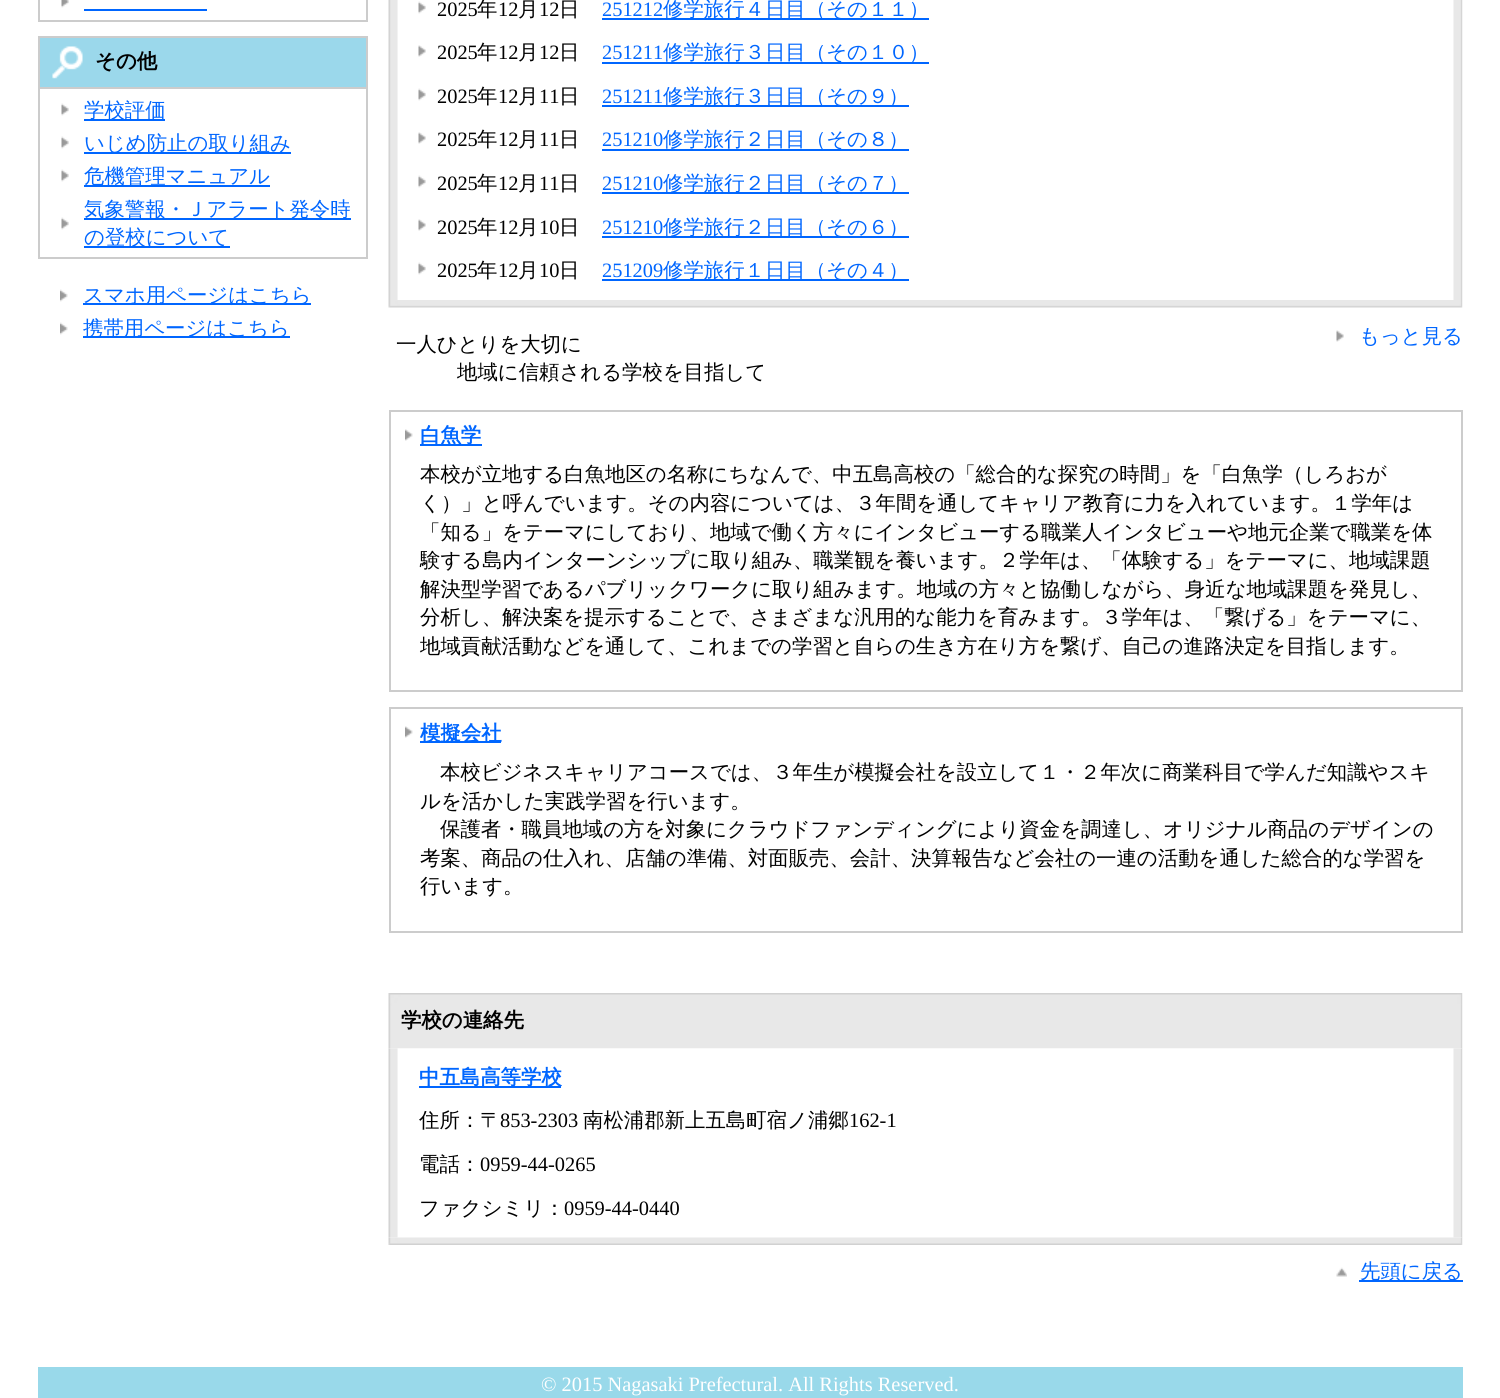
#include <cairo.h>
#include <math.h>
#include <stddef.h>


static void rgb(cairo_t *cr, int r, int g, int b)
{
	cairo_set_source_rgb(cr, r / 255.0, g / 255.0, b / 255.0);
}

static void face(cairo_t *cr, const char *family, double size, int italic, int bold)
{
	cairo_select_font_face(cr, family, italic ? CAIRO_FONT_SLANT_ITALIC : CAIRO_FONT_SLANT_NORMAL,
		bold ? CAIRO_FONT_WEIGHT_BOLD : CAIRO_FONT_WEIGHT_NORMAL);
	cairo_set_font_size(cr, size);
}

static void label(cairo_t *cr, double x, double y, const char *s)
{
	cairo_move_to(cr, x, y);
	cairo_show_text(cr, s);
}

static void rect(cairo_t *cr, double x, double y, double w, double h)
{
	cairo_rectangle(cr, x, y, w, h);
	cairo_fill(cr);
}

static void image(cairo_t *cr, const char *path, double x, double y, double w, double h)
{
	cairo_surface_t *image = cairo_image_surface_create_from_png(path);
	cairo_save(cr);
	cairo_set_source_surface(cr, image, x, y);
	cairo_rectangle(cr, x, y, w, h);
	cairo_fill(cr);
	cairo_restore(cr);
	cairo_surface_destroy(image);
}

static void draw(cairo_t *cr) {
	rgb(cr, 255, 255, 255);
	cairo_paint(cr);
	rgb(cr, 204, 204, 204);
	rect(cr, 366, 0, 2, 21);
	rect(cr, 38, 20, 330, 2);
	rect(cr, 38, 0, 2, 21);
	image(cr, "image0.png", 61, 0, 8, 8);
	rgb(cr, 0, 102, 255);
	rect(cr, 84, 9, 123, 2);
	rgb(cr, 155, 216, 235);
	cairo_rectangle(cr, 39, 37, 328, 51);
	cairo_fill_preserve(cr);
	rgb(cr, 204, 204, 204);
	cairo_stroke(cr);
	image(cr, "image1.png", 52, 46, 31, 33);
	face(cr, "WenQuanYi Zen Hei", 20.4, 0, 1);
	rgb(cr, 0, 0, 0);
	label(cr, 95, 68, "その他");
	rgb(cr, 204, 204, 204);
	rect(cr, 366, 89, 2, 169);
	rect(cr, 38, 257, 330, 2);
	rect(cr, 38, 89, 2, 169);
	image(cr, "image2.png", 61, 103, 8, 13);
	rgb(cr, 0, 102, 255);
	rect(cr, 84, 119, 81, 2);
	face(cr, "WenQuanYi Zen Hei Medium", 20.4, 0, 0);
	label(cr, 84, 117, "学校評価");
	image(cr, "image2.png", 61, 136, 8, 13);
	rect(cr, 84, 152, 207, 2);
	label(cr, 84, 150, "いじめ防止の取り組み");
	image(cr, "image2.png", 61, 169, 8, 13);
	rect(cr, 84, 185, 186, 2);
	label(cr, 84, 183, "危機管理マニュアル");
	image(cr, "image2.png", 61, 217, 8, 13);
	rect(cr, 84, 218, 267, 2);
	label(cr, 84, 216, "気象警報・Ｊアラート発令時");
	rect(cr, 84, 246, 146, 2);
	label(cr, 84, 244, "の登校について");
	image(cr, "image3.png", 60, 289, 8, 13);
	rect(cr, 83, 303, 228, 2);
	label(cr, 83, 302, "スマホ用ページはこちら");
	image(cr, "image3.png", 60, 322, 8, 13);
	rect(cr, 83, 336, 207, 2);
	label(cr, 83, 335, "携帯用ページはこちら");
	image(cr, "image4.png", 388, 0, 1075, 300);
	image(cr, "image5.png", 418, 1, 8, 13);
	face(cr, "Liberation Serif", 20.4, 0, 0);
	rgb(cr, 0, 0, 0);
	label(cr, 437, 16, "2025");
	face(cr, "WenQuanYi Zen Hei Medium", 20.4, 0, 0);
	label(cr, 477, 16, "年");
	face(cr, "Liberation Serif", 20.4, 0, 0);
	label(cr, 498, 16, "12");
	face(cr, "WenQuanYi Zen Hei Medium", 20.4, 0, 0);
	label(cr, 518, 16, "月");
	face(cr, "Liberation Serif", 20.4, 0, 0);
	label(cr, 539, 16, "12");
	face(cr, "WenQuanYi Zen Hei Medium", 20.4, 0, 0);
	label(cr, 559, 16, "日");
	face(cr, "Liberation Serif", 20.4, 0, 0);
	rgb(cr, 0, 102, 255);
	label(cr, 602, 16, "251212");
	rect(cr, 602, 18, 327, 2);
	face(cr, "WenQuanYi Zen Hei Medium", 20.4, 0, 0);
	label(cr, 663, 16, "修学旅行４日目（その１１）");
	image(cr, "image6.png", 418, 45, 8, 12);
	face(cr, "Liberation Serif", 20.4, 0, 0);
	rgb(cr, 0, 0, 0);
	label(cr, 437, 59, "2025");
	face(cr, "WenQuanYi Zen Hei Medium", 20.4, 0, 0);
	label(cr, 477, 59, "年");
	face(cr, "Liberation Serif", 20.4, 0, 0);
	label(cr, 498, 59, "12");
	face(cr, "WenQuanYi Zen Hei Medium", 20.4, 0, 0);
	label(cr, 518, 59, "月");
	face(cr, "Liberation Serif", 20.4, 0, 0);
	label(cr, 539, 59, "12");
	face(cr, "WenQuanYi Zen Hei Medium", 20.4, 0, 0);
	label(cr, 559, 59, "日");
	face(cr, "Liberation Serif", 20.4, 0, 0);
	rgb(cr, 0, 102, 255);
	label(cr, 602, 59, "251211");
	rect(cr, 602, 62, 327, 2);
	face(cr, "WenQuanYi Zen Hei Medium", 20.4, 0, 0);
	label(cr, 663, 59, "修学旅行３日目（その１０）");
	image(cr, "image5.png", 418, 88, 8, 13);
	face(cr, "Liberation Serif", 20.4, 0, 0);
	rgb(cr, 0, 0, 0);
	label(cr, 437, 103, "2025");
	face(cr, "WenQuanYi Zen Hei Medium", 20.4, 0, 0);
	label(cr, 477, 103, "年");
	face(cr, "Liberation Serif", 20.4, 0, 0);
	label(cr, 498, 103, "12");
	face(cr, "WenQuanYi Zen Hei Medium", 20.4, 0, 0);
	label(cr, 518, 103, "月");
	face(cr, "Liberation Serif", 20.4, 0, 0);
	label(cr, 539, 103, "11");
	face(cr, "WenQuanYi Zen Hei Medium", 20.4, 0, 0);
	label(cr, 559, 103, "日");
	face(cr, "Liberation Serif", 20.4, 0, 0);
	rgb(cr, 0, 102, 255);
	label(cr, 602, 103, "251211");
	rect(cr, 602, 105, 307, 2);
	face(cr, "WenQuanYi Zen Hei Medium", 20.4, 0, 0);
	label(cr, 663, 103, "修学旅行３日目（その９）");
	image(cr, "image6.png", 418, 132, 8, 12);
	face(cr, "Liberation Serif", 20.4, 0, 0);
	rgb(cr, 0, 0, 0);
	label(cr, 437, 146, "2025");
	face(cr, "WenQuanYi Zen Hei Medium", 20.4, 0, 0);
	label(cr, 477, 146, "年");
	face(cr, "Liberation Serif", 20.4, 0, 0);
	label(cr, 498, 146, "12");
	face(cr, "WenQuanYi Zen Hei Medium", 20.4, 0, 0);
	label(cr, 518, 146, "月");
	face(cr, "Liberation Serif", 20.4, 0, 0);
	label(cr, 539, 146, "11");
	face(cr, "WenQuanYi Zen Hei Medium", 20.4, 0, 0);
	label(cr, 559, 146, "日");
	face(cr, "Liberation Serif", 20.4, 0, 0);
	rgb(cr, 0, 102, 255);
	label(cr, 602, 146, "251210");
	rect(cr, 602, 149, 307, 2);
	face(cr, "WenQuanYi Zen Hei Medium", 20.4, 0, 0);
	label(cr, 663, 146, "修学旅行２日目（その８）");
	image(cr, "image5.png", 418, 175, 8, 13);
	face(cr, "Liberation Serif", 20.4, 0, 0);
	rgb(cr, 0, 0, 0);
	label(cr, 437, 190, "2025");
	face(cr, "WenQuanYi Zen Hei Medium", 20.4, 0, 0);
	label(cr, 477, 190, "年");
	face(cr, "Liberation Serif", 20.4, 0, 0);
	label(cr, 498, 190, "12");
	face(cr, "WenQuanYi Zen Hei Medium", 20.4, 0, 0);
	label(cr, 518, 190, "月");
	face(cr, "Liberation Serif", 20.4, 0, 0);
	label(cr, 539, 190, "11");
	face(cr, "WenQuanYi Zen Hei Medium", 20.4, 0, 0);
	label(cr, 559, 190, "日");
	face(cr, "Liberation Serif", 20.4, 0, 0);
	rgb(cr, 0, 102, 255);
	label(cr, 602, 190, "251210");
	rect(cr, 602, 192, 307, 2);
	face(cr, "WenQuanYi Zen Hei Medium", 20.4, 0, 0);
	label(cr, 663, 190, "修学旅行２日目（その７）");
	image(cr, "image6.png", 418, 219, 8, 12);
	face(cr, "Liberation Serif", 20.4, 0, 0);
	rgb(cr, 0, 0, 0);
	label(cr, 437, 234, "2025");
	face(cr, "WenQuanYi Zen Hei Medium", 20.4, 0, 0);
	label(cr, 477, 234, "年");
	face(cr, "Liberation Serif", 20.4, 0, 0);
	label(cr, 498, 234, "12");
	face(cr, "WenQuanYi Zen Hei Medium", 20.4, 0, 0);
	label(cr, 518, 234, "月");
	face(cr, "Liberation Serif", 20.4, 0, 0);
	label(cr, 539, 234, "10");
	face(cr, "WenQuanYi Zen Hei Medium", 20.4, 0, 0);
	label(cr, 559, 234, "日");
	face(cr, "Liberation Serif", 20.4, 0, 0);
	rgb(cr, 0, 102, 255);
	label(cr, 602, 234, "251210");
	rect(cr, 602, 236, 307, 2);
	face(cr, "WenQuanYi Zen Hei Medium", 20.4, 0, 0);
	label(cr, 663, 234, "修学旅行２日目（その６）");
	image(cr, "image5.png", 418, 262, 8, 13);
	face(cr, "Liberation Serif", 20.4, 0, 0);
	rgb(cr, 0, 0, 0);
	label(cr, 437, 277, "2025");
	face(cr, "WenQuanYi Zen Hei Medium", 20.4, 0, 0);
	label(cr, 477, 277, "年");
	face(cr, "Liberation Serif", 20.4, 0, 0);
	label(cr, 498, 277, "12");
	face(cr, "WenQuanYi Zen Hei Medium", 20.4, 0, 0);
	label(cr, 518, 277, "月");
	face(cr, "Liberation Serif", 20.4, 0, 0);
	label(cr, 539, 277, "10");
	face(cr, "WenQuanYi Zen Hei Medium", 20.4, 0, 0);
	label(cr, 559, 277, "日");
	face(cr, "Liberation Serif", 20.4, 0, 0);
	rgb(cr, 0, 102, 255);
	label(cr, 602, 277, "251209");
	rect(cr, 602, 279, 307, 2);
	face(cr, "WenQuanYi Zen Hei Medium", 20.4, 0, 0);
	label(cr, 663, 277, "修学旅行１日目（その４）");
	image(cr, "image7.png", 388, 300, 1075, 8);
	image(cr, "image6.png", 1336, 330, 8, 12);
	label(cr, 1359, 343, "もっと見る");
	rgb(cr, 0, 0, 0);
	label(cr, 396, 351, "一人ひとりを大切に");
	label(cr, 457, 379, "地域に信頼される学校を目指して");
	cairo_rectangle(cr, 390, 411, 1072, 280);
	rgb(cr, 204, 204, 204);
	cairo_stroke(cr);
	image(cr, "image8.png", 405, 429, 8, 12);
	rgb(cr, 0, 102, 255);
	rect(cr, 420, 444, 62, 2);
	face(cr, "WenQuanYi Zen Hei", 20.4, 0, 1);
	label(cr, 420, 442, "白魚学");
	face(cr, "WenQuanYi Zen Hei Medium", 20.4, 0, 0);
	rgb(cr, 0, 0, 0);
	label(cr, 420, 481, "本校が立地する白魚地区の名称にちなんで、中五島高校の「総合的な探究の時間」を「白魚学（しろおが");
	label(cr, 420, 510, "く）」と呼んでいます。その内容については、３年間を通してキャリア教育に力を入れています。１学年は");
	label(cr, 420, 539, "「知る」をテーマにしており、地域で働く方々にインタビューする職業人インタビューや地元企業で職業を体");
	label(cr, 420, 567, "験する島内インターンシップに取り組み、職業観を養います。２学年は、「体験する」をテーマに、地域課題");
	label(cr, 420, 596, "解決型学習であるパブリックワークに取り組みます。地域の方々と協働しながら、身近な地域課題を発見し、");
	label(cr, 420, 624, "分析し、解決案を提示することで、さまざまな汎用的な能力を育みます。３学年は、「繋げる」をテーマに、");
	label(cr, 420, 653, "地域貢献活動などを通して、これまでの学習と自らの生き方在り方を繋げ、自己の進路決定を目指します。");
	cairo_rectangle(cr, 390, 708, 1072, 224);
	rgb(cr, 204, 204, 204);
	cairo_stroke(cr);
	image(cr, "image8.png", 405, 726, 8, 12);
	rgb(cr, 0, 102, 255);
	rect(cr, 420, 741, 81, 2);
	face(cr, "WenQuanYi Zen Hei", 20.4, 0, 1);
	label(cr, 420, 740, "模擬会社");
	face(cr, "WenQuanYi Zen Hei Medium", 20.4, 0, 0);
	rgb(cr, 0, 0, 0);
	label(cr, 440, 779, "本校ビジネスキャリアコースでは、３年生が模擬会社を設立して１・２年次に商業科目で学んだ知識やスキ");
	label(cr, 420, 808, "ルを活かした実践学習を行います。");
	label(cr, 440, 836, "保護者・職員地域の方を対象にクラウドファンディングにより資金を調達し、オリジナル商品のデザインの");
	label(cr, 420, 865, "考案、商品の仕入れ、店舗の準備、対面販売、会計、決算報告など会社の一連の活動を通した総合的な学習を");
	label(cr, 420, 893, "行います。");
	image(cr, "image9.png", 388, 993, 1075, 56);
	face(cr, "WenQuanYi Zen Hei", 20.4, 0, 1);
	label(cr, 401, 1027, "学校の連絡先");
	image(cr, "image10.png", 388, 1048, 1075, 190);
	rgb(cr, 0, 102, 255);
	rect(cr, 419, 1086, 142, 2);
	label(cr, 419, 1084, "中五島高等学校");
	face(cr, "WenQuanYi Zen Hei Medium", 20.4, 0, 0);
	rgb(cr, 0, 0, 0);
	label(cr, 419, 1127, "住所：〒");
	face(cr, "Liberation Serif", 20.4, 0, 0);
	label(cr, 500, 1127, "853-2303");
	face(cr, "WenQuanYi Zen Hei Medium", 20.4, 0, 0);
	label(cr, 583, 1127, "南松浦郡新上五島町宿ノ浦郷");
	face(cr, "Liberation Serif", 20.4, 0, 0);
	label(cr, 849, 1127, "162-1");
	face(cr, "WenQuanYi Zen Hei Medium", 20.4, 0, 0);
	label(cr, 419, 1171, "電話：");
	face(cr, "Liberation Serif", 20.4, 0, 0);
	label(cr, 480, 1171, "0959-44-0265");
	face(cr, "WenQuanYi Zen Hei Medium", 20.4, 0, 0);
	label(cr, 419, 1215, "ファクシミリ：");
	face(cr, "Liberation Serif", 20.4, 0, 0);
	label(cr, 564, 1215, "0959-44-0440");
	image(cr, "image11.png", 388, 1237, 1075, 8);
	image(cr, "image12.png", 1336, 1267, 11, 10);
	rgb(cr, 0, 102, 255);
	rect(cr, 1359, 1280, 104, 2);
	face(cr, "WenQuanYi Zen Hei Medium", 20.4, 0, 0);
	label(cr, 1360, 1278, "先頭に戻る");
	rgb(cr, 153, 217, 234);
	rect(cr, 38, 1367, 1425, 31);
	face(cr, "Liberation Serif", 20.4, 0, 0);
	rgb(cr, 255, 255, 255);
	label(cr, 541, 1391, "© 2015 Nagasaki Prefectural. All Rights Reserved.");
}

int main(void) {
	cairo_surface_t *surface = cairo_image_surface_create(CAIRO_FORMAT_RGB24, 1500, 1398);
	cairo_t *cr = cairo_create(surface);
	cairo_font_options_t *options = cairo_font_options_create();
	cairo_font_options_set_hint_metrics(options, CAIRO_HINT_METRICS_OFF);
	cairo_font_options_set_hint_style(options, CAIRO_HINT_STYLE_NONE);
	cairo_set_font_options(cr, options);
	cairo_set_miter_limit(cr, 4);
	draw(cr);
	cairo_surface_write_to_png(surface, "render.png");
	cairo_font_options_destroy(options);
	cairo_destroy(cr);
	cairo_surface_destroy(surface);
	return 0;
}
